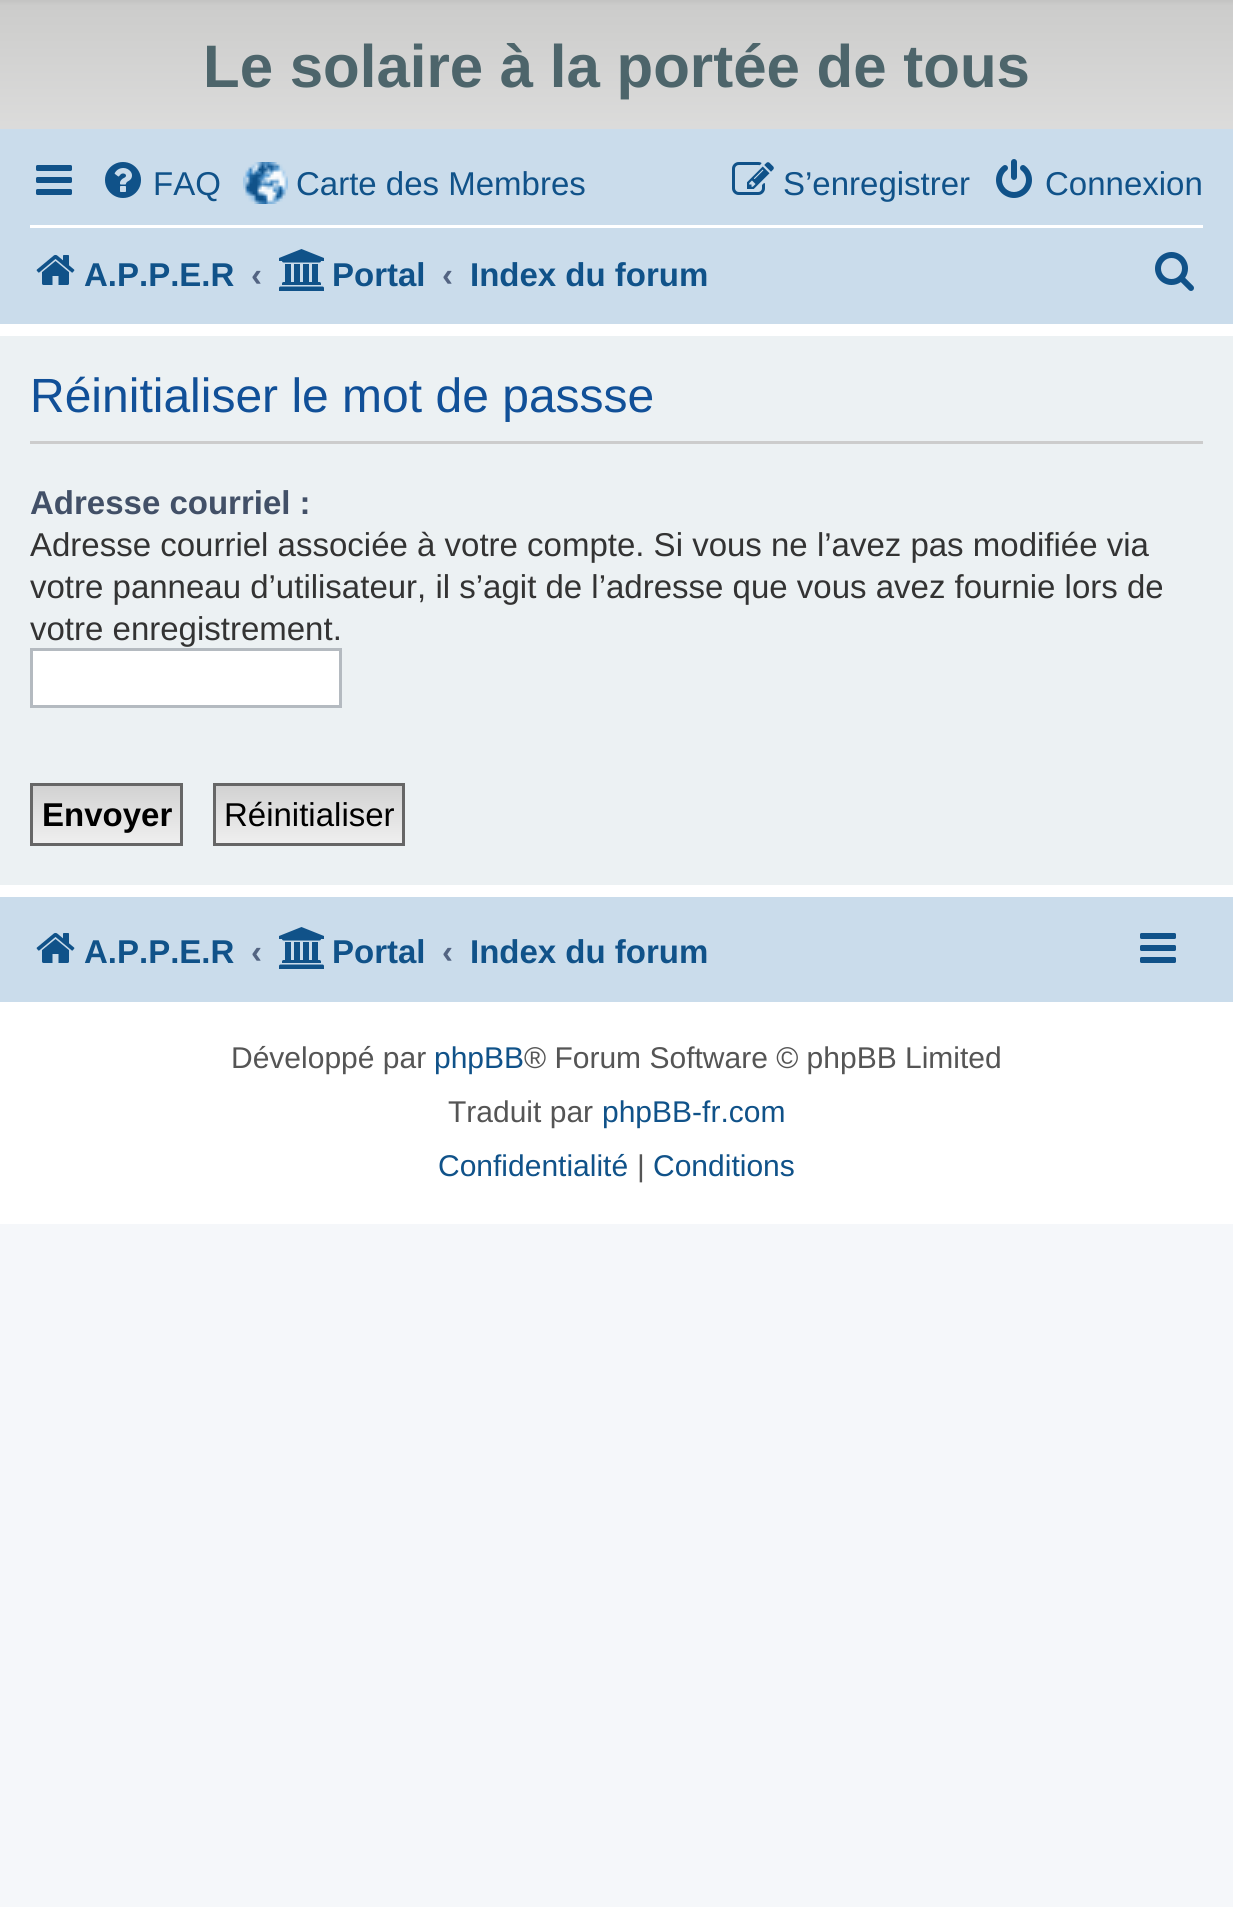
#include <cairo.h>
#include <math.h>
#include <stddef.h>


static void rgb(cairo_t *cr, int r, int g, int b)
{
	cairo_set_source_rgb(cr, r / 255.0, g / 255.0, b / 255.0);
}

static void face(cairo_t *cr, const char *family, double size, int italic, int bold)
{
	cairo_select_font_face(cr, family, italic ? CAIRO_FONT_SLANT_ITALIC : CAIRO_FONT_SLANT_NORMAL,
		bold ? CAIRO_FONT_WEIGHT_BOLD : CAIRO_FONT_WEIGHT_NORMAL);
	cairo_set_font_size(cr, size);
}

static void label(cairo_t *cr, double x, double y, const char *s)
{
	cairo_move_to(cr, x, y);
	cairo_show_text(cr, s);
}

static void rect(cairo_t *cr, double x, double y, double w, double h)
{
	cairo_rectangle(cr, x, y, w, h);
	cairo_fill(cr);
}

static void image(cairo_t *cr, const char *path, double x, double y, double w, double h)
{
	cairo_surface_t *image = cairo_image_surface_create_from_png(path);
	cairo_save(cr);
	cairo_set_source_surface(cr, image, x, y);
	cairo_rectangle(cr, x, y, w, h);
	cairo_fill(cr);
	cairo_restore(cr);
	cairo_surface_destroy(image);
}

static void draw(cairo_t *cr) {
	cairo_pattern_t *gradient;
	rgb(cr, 245, 247, 250);
	cairo_paint(cr);
	rgb(cr, 255, 255, 255);
	rect(cr, 0, 324, 1233, 900);
	gradient = cairo_pattern_create_linear(617, 0, 617, 276);
	cairo_pattern_add_color_stop_rgba(gradient, 0, 0.765, 0.765, 0.761, 1);
	cairo_pattern_add_color_stop_rgba(gradient, 0.02, 0.8, 0.8, 0.796, 1);
	cairo_pattern_add_color_stop_rgba(gradient, 1, 0.933, 0.933, 0.933, 1);
	cairo_pattern_add_color_stop_rgba(gradient, 1, 1, 1, 1, 1);
	cairo_set_source(cr, gradient);
	cairo_pattern_destroy(gradient);
	rect(cr, 0, 0, 1233, 129);
	face(cr, "Liberation Sans", 60, 0, 1);
	rgb(cr, 77, 101, 107);
	label(cr, 203, 87, "Le solaire à la portée de tous");
	rgb(cr, 202, 220, 235);
	rect(cr, 0, 129, 1233, 195);
	image(cr, "image0.png", 36, 165, 36, 30);
	image(cr, "image1.png", 105, 162, 36, 36);
	face(cr, "Liberation Sans", 33, 0, 0);
	rgb(cr, 16, 82, 137);
	label(cr, 153, 195, "FAQ");
	image(cr, "image2.png", 243, 162, 45, 42);
	label(cr, 296, 195, "Carte des Membres");
	image(cr, "image3.png", 732, 162, 42, 33);
	label(cr, 783, 195, "S’enregistrer");
	image(cr, "image4.png", 996, 159, 36, 39);
	label(cr, 1045, 195, "Connexion");
	rgb(cr, 255, 255, 255);
	rect(cr, 30, 225, 1173, 3);
	image(cr, "image5.png", 36, 254, 39, 31);
	face(cr, "Liberation Sans", 33, 0, 1);
	rgb(cr, 16, 82, 137);
	label(cr, 84, 286, "A.P.P.E.R");
	rgb(cr, 83, 100, 130);
	label(cr, 251, 286, "‹");
	image(cr, "image6.png", 279, 249, 45, 42);
	rgb(cr, 16, 82, 137);
	label(cr, 332, 286, "Portal");
	rgb(cr, 83, 100, 130);
	label(cr, 442, 286, "‹");
	rgb(cr, 16, 82, 137);
	label(cr, 470, 286, "Index du forum");
	image(cr, "image7.png", 1155, 252, 39, 39);
	rgb(cr, 236, 241, 243);
	rect(cr, 0, 336, 1233, 549);
	rgb(cr, 204, 204, 204);
	rect(cr, 30, 441, 1173, 3);
	face(cr, "Liberation Sans", 48, 0, 0);
	rgb(cr, 17, 80, 152);
	label(cr, 30, 412, "Réinitialiser le mot de passse");
	face(cr, "Liberation Sans", 33, 0, 1);
	rgb(cr, 66, 80, 103);
	label(cr, 30, 514, "Adresse courriel :");
	face(cr, "Liberation Sans", 33, 0, 0);
	rgb(cr, 51, 51, 51);
	label(cr, 30, 556, "Adresse courriel associée à votre compte. Si vous ne l’avez pas modifiée via");
	label(cr, 30, 598, "votre panneau d’utilisateur, il s’agit de l’adresse que vous avez fournie lors de");
	label(cr, 30, 640, "votre enregistrement.");
	rgb(cr, 255, 255, 255);
	cairo_rectangle(cr, 31.5, 649.5, 309, 57);
	cairo_fill_preserve(cr);
	rgb(cr, 180, 186, 192);
	cairo_set_line_width(cr, 3);
	cairo_stroke(cr);
	gradient = cairo_pattern_create_linear(107, 786, 107, 843);
	cairo_pattern_add_color_stop_rgba(gradient, 0, 0.824, 0.824, 0.824, 1);
	cairo_pattern_add_color_stop_rgba(gradient, 1, 0.937, 0.937, 0.937, 1);
	cairo_set_source(cr, gradient);
	cairo_pattern_destroy(gradient);
	rect(cr, 33, 786, 147, 57);
	cairo_rectangle(cr, 31.5, 784.5, 150, 60);
	rgb(cr, 102, 102, 102);
	cairo_stroke(cr);
	face(cr, "Liberation Sans", 33, 0, 1);
	rgb(cr, 0, 0, 0);
	label(cr, 42, 826, "Envoyer");
	gradient = cairo_pattern_create_linear(309, 786, 309, 843);
	cairo_pattern_add_color_stop_rgba(gradient, 0, 0.824, 0.824, 0.824, 1);
	cairo_pattern_add_color_stop_rgba(gradient, 1, 0.937, 0.937, 0.937, 1);
	cairo_set_source(cr, gradient);
	cairo_pattern_destroy(gradient);
	rect(cr, 216, 786, 186, 57);
	cairo_rectangle(cr, 214.5, 784.5, 189, 60);
	rgb(cr, 102, 102, 102);
	cairo_stroke(cr);
	face(cr, "Liberation Sans", 33, 0, 0);
	rgb(cr, 0, 0, 0);
	label(cr, 224, 826, "Réinitialiser");
	rgb(cr, 202, 220, 235);
	rect(cr, 0, 897, 1233, 105);
	image(cr, "image5.png", 36, 932, 39, 31);
	face(cr, "Liberation Sans", 33, 0, 1);
	rgb(cr, 16, 82, 137);
	label(cr, 84, 963, "A.P.P.E.R");
	rgb(cr, 83, 100, 130);
	label(cr, 251, 963, "‹");
	image(cr, "image6.png", 279, 927, 45, 42);
	rgb(cr, 16, 82, 137);
	label(cr, 332, 963, "Portal");
	rgb(cr, 83, 100, 130);
	label(cr, 442, 963, "‹");
	rgb(cr, 16, 82, 137);
	label(cr, 470, 963, "Index du forum");
	image(cr, "image0.png", 1140, 933, 36, 30);
	face(cr, "Liberation Sans", 30, 0, 0);
	rgb(cr, 85, 85, 85);
	label(cr, 231, 1068, "Développé par");
	rgb(cr, 16, 82, 137);
	label(cr, 434, 1068, "phpBB");
	rgb(cr, 85, 85, 85);
	label(cr, 524, 1068, "® Forum Software © phpBB Limited");
	label(cr, 448, 1122, "Traduit par");
	rgb(cr, 16, 82, 137);
	label(cr, 602, 1122, "phpBB-fr.com");
	label(cr, 438, 1176, "Confidentialité");
	rgb(cr, 85, 85, 85);
	label(cr, 637, 1176, "|");
	rgb(cr, 16, 82, 137);
	label(cr, 653, 1176, "Conditions");
}

int main(void) {
	cairo_surface_t *surface = cairo_image_surface_create(CAIRO_FORMAT_RGB24, 1233, 1907);
	cairo_t *cr = cairo_create(surface);
	cairo_font_options_t *options = cairo_font_options_create();
	cairo_font_options_set_hint_metrics(options, CAIRO_HINT_METRICS_OFF);
	cairo_font_options_set_hint_style(options, CAIRO_HINT_STYLE_NONE);
	cairo_set_font_options(cr, options);
	cairo_set_miter_limit(cr, 4);
	draw(cr);
	cairo_surface_write_to_png(surface, "render.png");
	cairo_font_options_destroy(options);
	cairo_destroy(cr);
	cairo_surface_destroy(surface);
	return 0;
}
